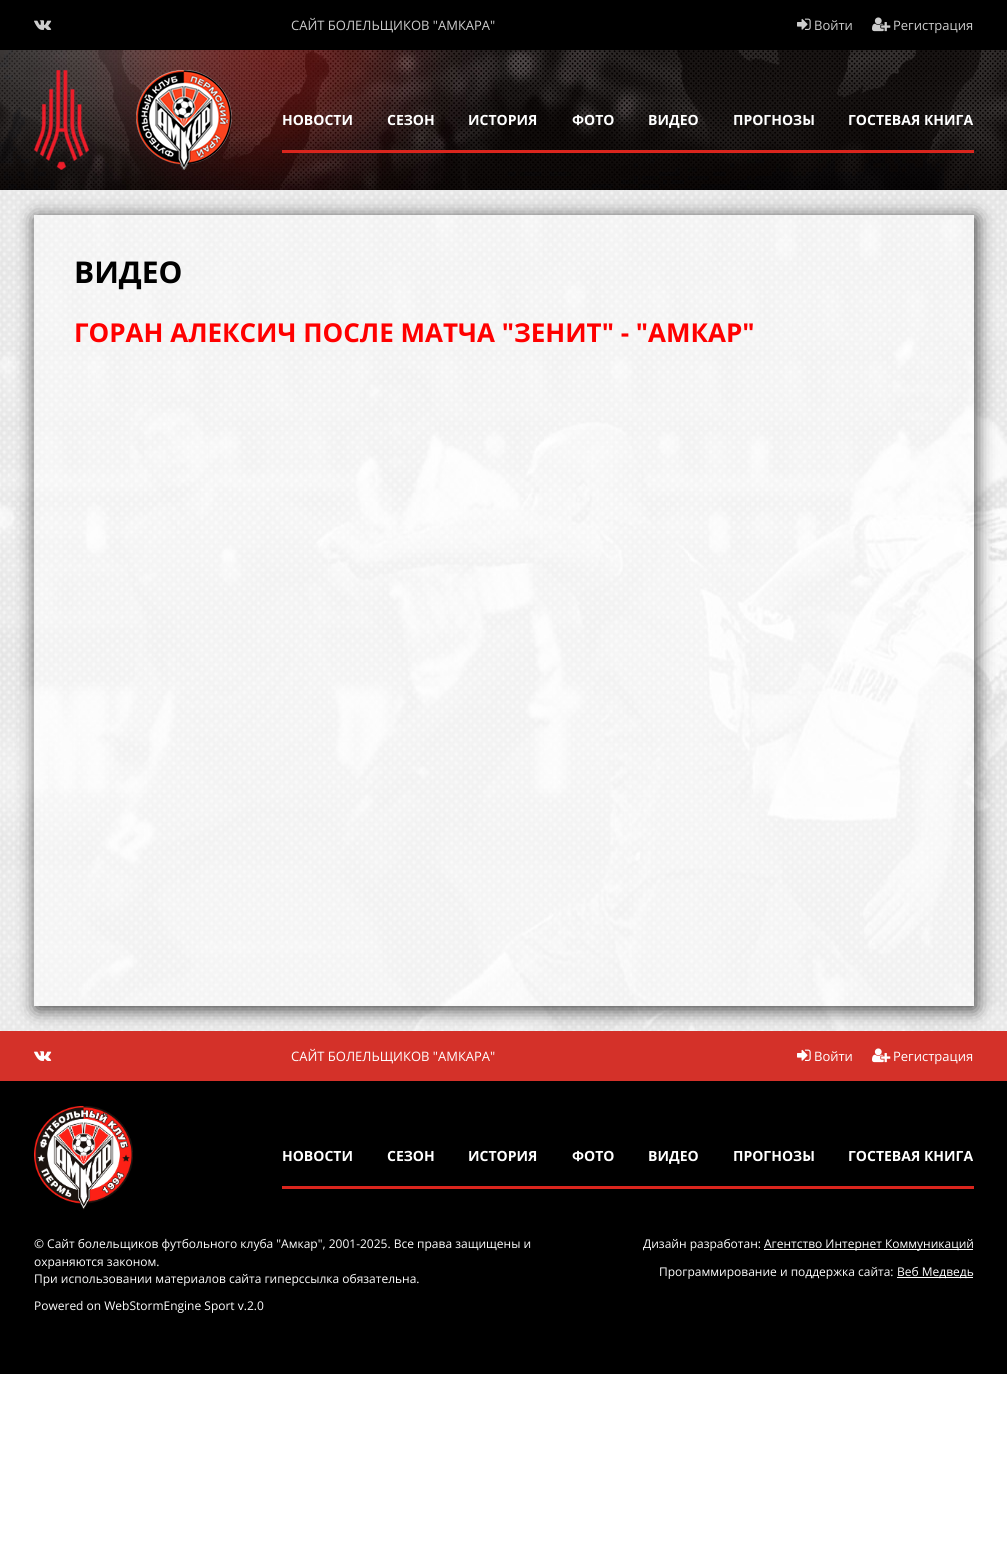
#include <cairo.h>
#include <math.h>
#include <stddef.h>


static void rgb(cairo_t *cr, int r, int g, int b)
{
	cairo_set_source_rgb(cr, r / 255.0, g / 255.0, b / 255.0);
}

static void face(cairo_t *cr, const char *family, double size, int italic, int bold)
{
	cairo_select_font_face(cr, family, italic ? CAIRO_FONT_SLANT_ITALIC : CAIRO_FONT_SLANT_NORMAL,
		bold ? CAIRO_FONT_WEIGHT_BOLD : CAIRO_FONT_WEIGHT_NORMAL);
	cairo_set_font_size(cr, size);
}

static void label(cairo_t *cr, double x, double y, const char *s)
{
	cairo_move_to(cr, x, y);
	cairo_show_text(cr, s);
}

static void rect(cairo_t *cr, double x, double y, double w, double h)
{
	cairo_rectangle(cr, x, y, w, h);
	cairo_fill(cr);
}

static void rrect(cairo_t *cr, double x, double y, double w, double h, double r)
{
	cairo_new_sub_path(cr);
	cairo_arc(cr, x + w - r, y + h - r, r, 0, M_PI / 2);
	cairo_arc(cr, x + r, y + h - r, r, M_PI / 2, M_PI);
	cairo_arc(cr, x + r, y + r, r, M_PI, 1.5 * M_PI);
	cairo_arc(cr, x + w - r, y + r, r, 1.5 * M_PI, 2 * M_PI);
	cairo_close_path(cr);
}

static void soft_shadow(cairo_t *cr, double x, double y, double w, double h, double r, double blur, double alpha)
{
	cairo_push_group_with_content(cr, CAIRO_CONTENT_ALPHA);
	cairo_set_operator(cr, CAIRO_OPERATOR_SOURCE);
	for (int i = 15; i >= -15 && fmin(w, h) + blur * i / 3 > 0; i -= 2) {
		double e = blur * i / 6;
		cairo_set_source_rgba(cr, 0, 0, 0, alpha * erfc((i - 1) / 8.5) / 2);
		rrect(cr, x - e, y - e, w + 2 * e, h + 2 * e, fmax(0, fmin(r + e + blur * .6, fmin(w, h) / 2 + e)));
		cairo_fill(cr);
	}
	cairo_pattern_t *soft = cairo_pop_group(cr);
	cairo_mask(cr, soft);
	cairo_pattern_destroy(soft);
}

static void image(cairo_t *cr, const char *path, double x, double y, double w, double h)
{
	cairo_surface_t *image = cairo_image_surface_create_from_png(path);
	cairo_save(cr);
	cairo_set_source_surface(cr, image, x, y);
	cairo_rectangle(cr, x, y, w, h);
	cairo_fill(cr);
	cairo_restore(cr);
	cairo_surface_destroy(image);
}

static void draw(cairo_t *cr) {
	rgb(cr, 255, 255, 255);
	cairo_paint(cr);
	rgb(cr, 0, 0, 0);
	rect(cr, 0, 0, 1007, 50);
	image(cr, "image0.png", 34, 20, 18, 10);
	face(cr, "Open Sans", 13, 0, 0);
	rgb(cr, 205, 205, 205);
	label(cr, 291, 30, "САЙТ БОЛЕЛЬЩИКОВ \"АМКАРА\"");
	image(cr, "image1.png", 797, 18, 14, 12);
	label(cr, 814, 30, "Войти");
	image(cr, "image2.png", 872, 17, 19, 15);
	label(cr, 893, 30, "Регистрация");
	image(cr, "image3.png", 0, 50, 1007, 140);
	image(cr, "image4.png", 34, 70, 55, 100);
	image(cr, "image5.png", 136, 70, 96, 100);
	rgb(cr, 218, 37, 29);
	rect(cr, 282, 150, 692, 3);
	face(cr, "Open Sans", 14, 0, 1);
	rgb(cr, 255, 255, 255);
	label(cr, 282, 125, "НОВОСТИ");
	label(cr, 387, 125, "СЕЗОН");
	label(cr, 468, 125, "ИСТОРИЯ");
	label(cr, 572, 125, "ФОТО");
	label(cr, 648, 125, "ВИДЕО");
	label(cr, 733, 125, "ПРОГНОЗЫ");
	label(cr, 848, 125, "ГОСТЕВАЯ КНИГА");
	image(cr, "image6.png", 0, 190, 1007, 841);
	rgb(cr, 212, 49, 41);
	rect(cr, 0, 1031, 1007, 50);
	cairo_save(cr);
	cairo_set_fill_rule(cr, CAIRO_FILL_RULE_EVEN_ODD);
	cairo_new_path(cr);
	cairo_move_to(cr, 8, 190);
	cairo_line_to(cr, 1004, 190);
	cairo_line_to(cr, 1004, 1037);
	cairo_line_to(cr, 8, 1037);
	cairo_close_path(cr);
	cairo_move_to(cr, 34, 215);
	cairo_line_to(cr, 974, 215);
	cairo_line_to(cr, 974, 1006);
	cairo_line_to(cr, 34, 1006);
	cairo_close_path(cr);
	cairo_clip(cr);
	rgb(cr, 0, 0, 0);
	soft_shadow(cr, 36, 218, 940, 791, 0, 9, 0.75);
	cairo_restore(cr);
	cairo_set_source_rgba(cr, 1, 1, 1, 0.5);
	rect(cr, 34, 215, 940, 791);
	face(cr, "Open Sans", 30, 0, 1);
	rgb(cr, 0, 0, 0);
	label(cr, 74, 283, "ВИДЕО");
	face(cr, "Open Sans", 26, 0, 1);
	rgb(cr, 255, 0, 0);
	label(cr, 74, 342, "ГОРАН АЛЕКСИЧ ПОСЛЕ МАТЧА \"ЗЕНИТ\" - \"АМКАР\"");
	image(cr, "image7.png", 34, 1051, 18, 10);
	face(cr, "Open Sans", 13, 0, 0);
	rgb(cr, 255, 255, 255);
	label(cr, 291, 1061, "САЙТ БОЛЕЛЬЩИКОВ \"АМКАРА\"");
	image(cr, "image8.png", 797, 1049, 14, 12);
	label(cr, 814, 1061, "Войти");
	image(cr, "image9.png", 872, 1048, 19, 15);
	label(cr, 893, 1061, "Регистрация");
	rgb(cr, 0, 0, 0);
	rect(cr, 0, 1081, 1007, 293);
	image(cr, "image10.png", 34, 1106, 99, 104);
	rgb(cr, 218, 37, 29);
	rect(cr, 282, 1186, 692, 3);
	face(cr, "Open Sans", 14, 0, 1);
	rgb(cr, 255, 255, 255);
	label(cr, 282, 1161, "НОВОСТИ");
	label(cr, 387, 1161, "СЕЗОН");
	label(cr, 468, 1161, "ИСТОРИЯ");
	label(cr, 572, 1161, "ФОТО");
	label(cr, 648, 1161, "ВИДЕО");
	label(cr, 733, 1161, "ПРОГНОЗЫ");
	label(cr, 848, 1161, "ГОСТЕВАЯ КНИГА");
	face(cr, "Open Sans", 12, 0, 0);
	label(cr, 34, 1248, "© Сайт болельщиков футбольного клуба \"Амкар\", 2001-2025. Все права защищены и");
	label(cr, 34, 1266, "охраняются законом.");
	label(cr, 34, 1283, "При использовании материалов сайта гиперссылка обязательна.");
	label(cr, 34, 1310, "Powered on WebStormEngine Sport v.2.0");
	label(cr, 643, 1248, "Дизайн разработан:");
	rect(cr, 764, 1249, 209, 1);
	label(cr, 764, 1248, "Агентство Интернет Коммуникаций");
	label(cr, 659, 1276, "Программирование и поддержка сайта:");
	rect(cr, 897, 1277, 76, 1);
	label(cr, 897, 1276, "Веб Медведь");
}

int main(void) {
	cairo_surface_t *surface = cairo_image_surface_create(CAIRO_FORMAT_RGB24, 1007, 1547);
	cairo_t *cr = cairo_create(surface);
	cairo_font_options_t *options = cairo_font_options_create();
	cairo_font_options_set_hint_metrics(options, CAIRO_HINT_METRICS_OFF);
	cairo_font_options_set_hint_style(options, CAIRO_HINT_STYLE_NONE);
	cairo_set_font_options(cr, options);
	cairo_set_miter_limit(cr, 4);
	draw(cr);
	cairo_surface_write_to_png(surface, "render.png");
	cairo_font_options_destroy(options);
	cairo_destroy(cr);
	cairo_surface_destroy(surface);
	return 0;
}
